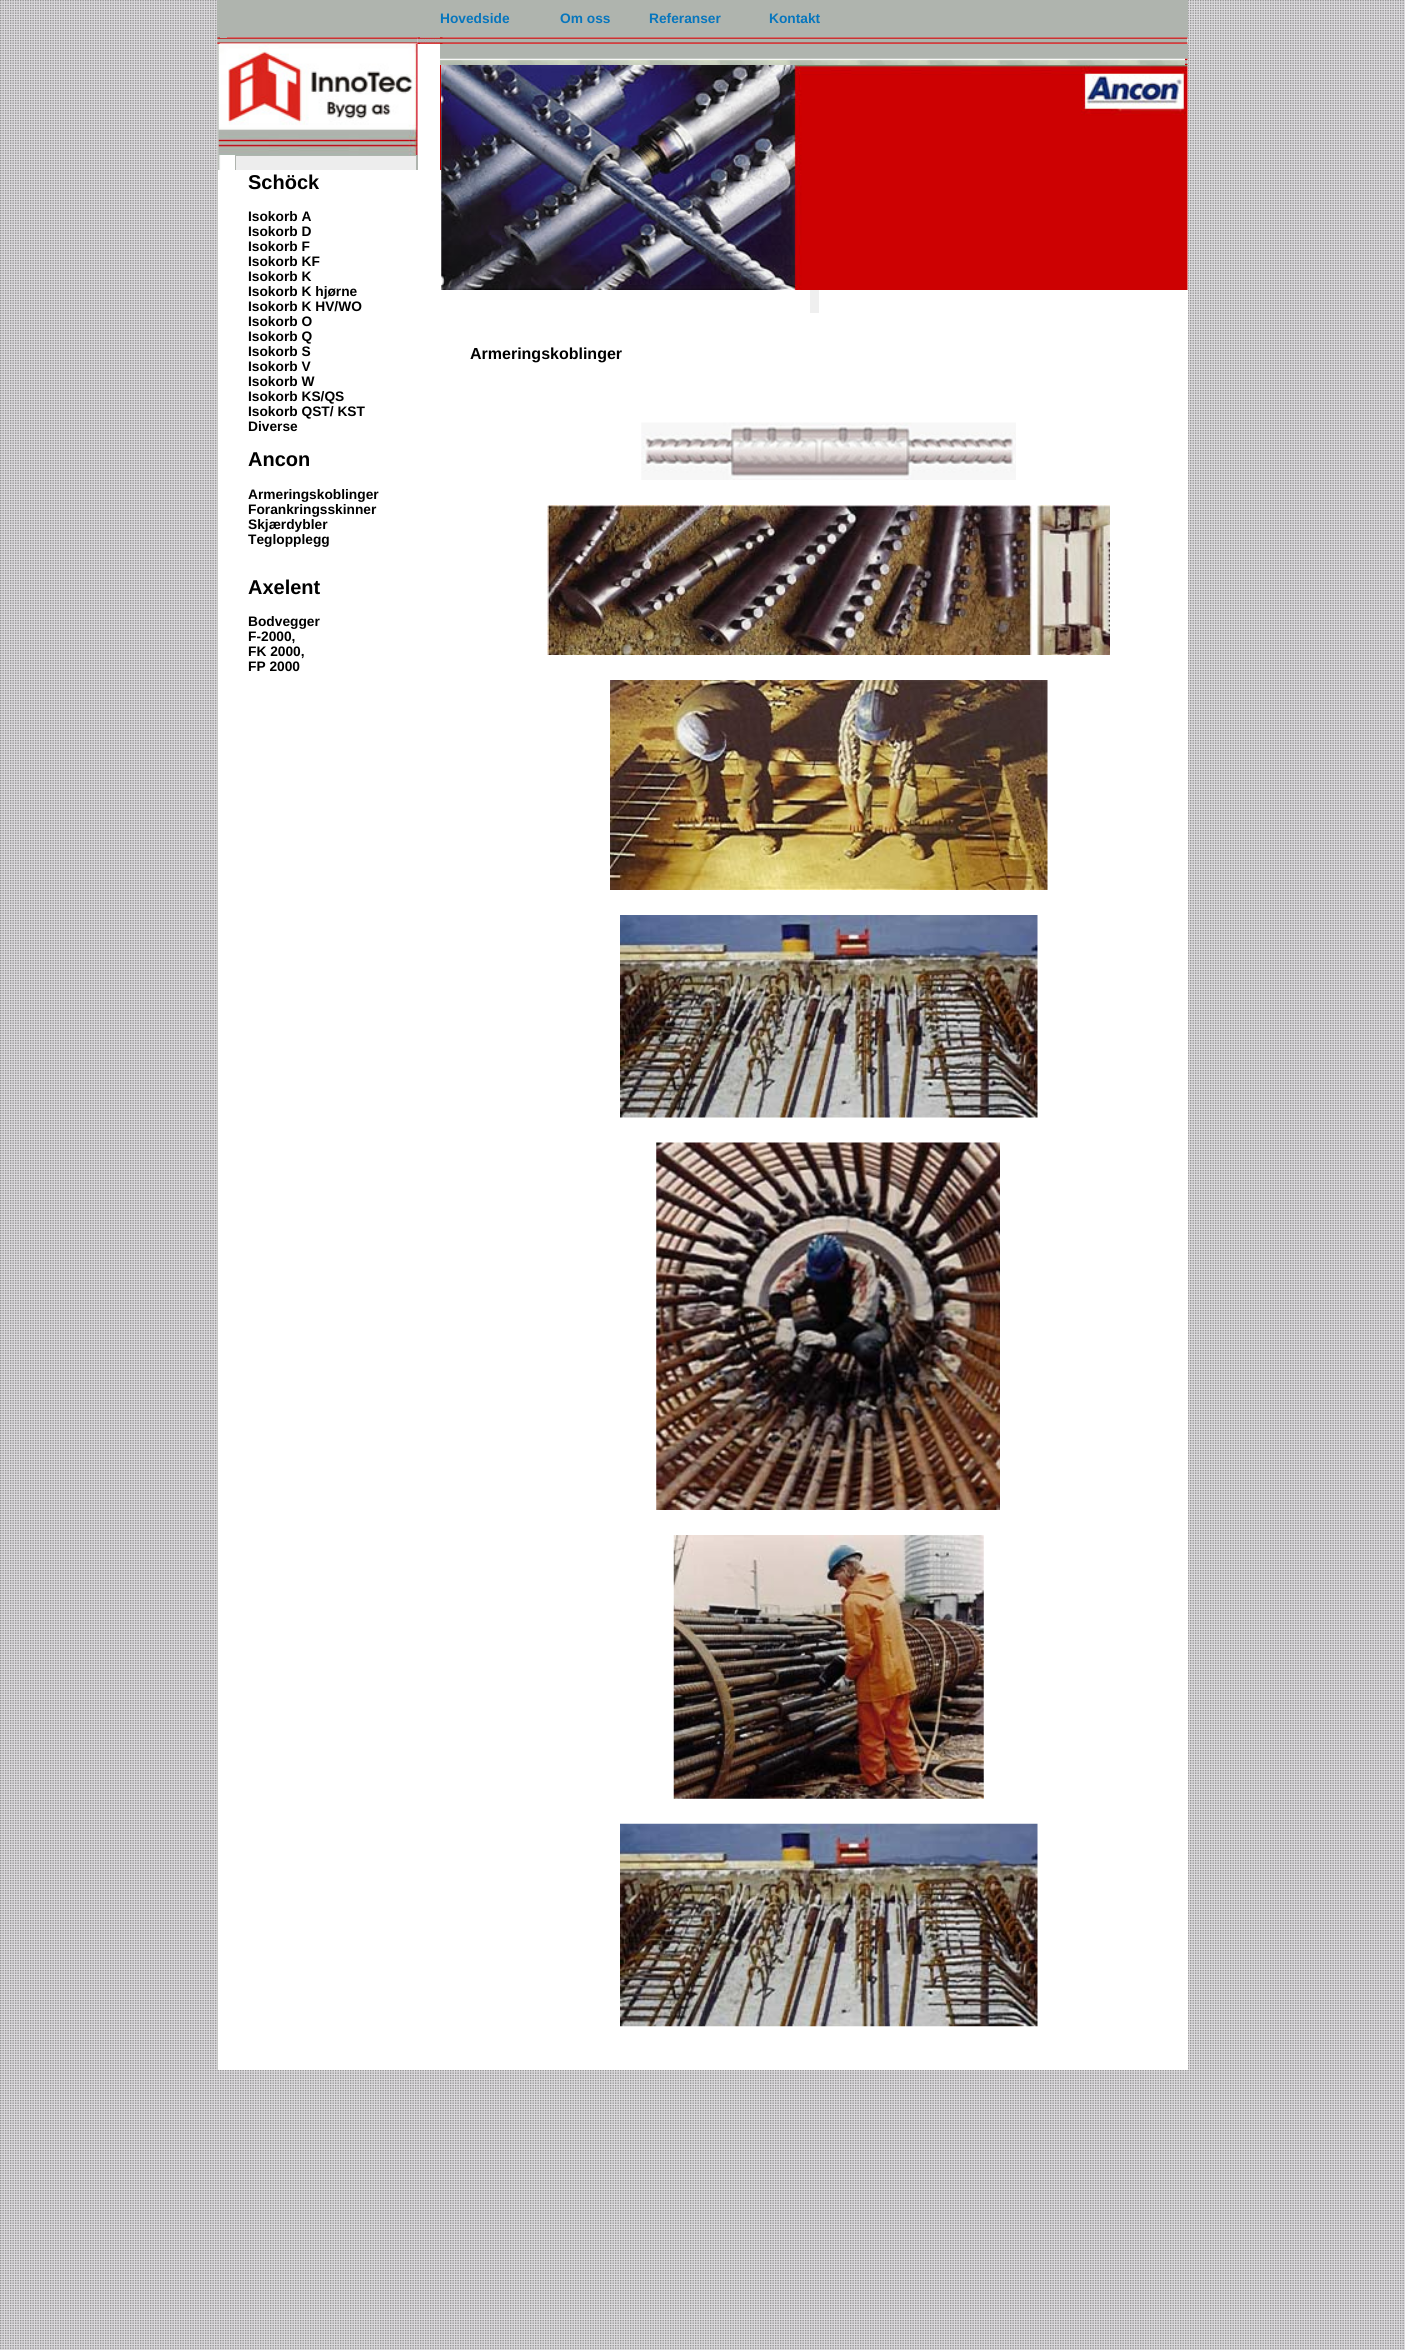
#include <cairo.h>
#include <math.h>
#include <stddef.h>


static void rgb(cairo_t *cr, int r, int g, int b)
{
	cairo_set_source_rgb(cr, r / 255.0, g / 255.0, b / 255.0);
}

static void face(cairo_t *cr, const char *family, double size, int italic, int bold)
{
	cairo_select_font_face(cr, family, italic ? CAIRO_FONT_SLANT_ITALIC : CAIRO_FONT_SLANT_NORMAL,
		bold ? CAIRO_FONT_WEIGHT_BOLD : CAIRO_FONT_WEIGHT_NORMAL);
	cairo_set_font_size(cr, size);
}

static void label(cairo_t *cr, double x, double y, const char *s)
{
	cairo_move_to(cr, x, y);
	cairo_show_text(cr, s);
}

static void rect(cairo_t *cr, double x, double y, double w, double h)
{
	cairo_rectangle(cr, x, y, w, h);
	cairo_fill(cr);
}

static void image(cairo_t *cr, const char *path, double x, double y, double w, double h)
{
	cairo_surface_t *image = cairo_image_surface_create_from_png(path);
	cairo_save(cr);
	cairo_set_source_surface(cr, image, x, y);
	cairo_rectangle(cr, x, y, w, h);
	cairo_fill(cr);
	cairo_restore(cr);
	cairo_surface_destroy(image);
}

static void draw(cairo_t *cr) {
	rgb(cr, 255, 255, 255);
	cairo_paint(cr);
	image(cr, "image0.png", 0, 0, 1405, 2350);
	rgb(cr, 175, 180, 174);
	rect(cr, 218, 0, 970, 38);
	rgb(cr, 255, 255, 255);
	rect(cr, 218, 38, 970, 6);
	image(cr, "image2.png", 217, 37, 201, 7);
	rgb(cr, 175, 180, 174);
	rect(cr, 217, 1, 10, 37);
	face(cr, "Liberation Sans", 13.75, 0, 1);
	rgb(cr, 7, 118, 189);
	label(cr, 440, 23, "Hovedside");
	label(cr, 560, 23, "Om oss");
	label(cr, 649, 23, "Referanser");
	label(cr, 769, 23, "Kontakt");
	image(cr, "image4.png", 417, 37, 23, 7);
	image(cr, "image1.png", 417, 37, 23, 1);
	rgb(cr, 255, 255, 255);
	rect(cr, 417, 44, 771, 126);
	image(cr, "image8.png", 217, 43, 201, 2027);
	image(cr, "image3.png", 217, 37, 3, 7);
	image(cr, "image5.png", 417, 37, 3, 7);
	image(cr, "image6.png", 440, 37, 748, 7);
	image(cr, "image7.png", 440, 37, 3, 7);
	rect(cr, 218, 170, 970, 1900);
	image(cr, "image9.png", 218, 43, 200, 112);
	rgb(cr, 175, 180, 174);
	rect(cr, 235, 155, 183, 15);
	rgb(cr, 237, 237, 237);
	rect(cr, 236, 156, 180, 14);
	face(cr, "Liberation Sans", 20, 0, 1);
	rgb(cr, 0, 0, 0);
	label(cr, 248, 189, "Schöck");
	face(cr, "Liberation Sans", 13.75, 0, 1);
	label(cr, 248, 221, "Isokorb A");
	label(cr, 248, 236, "Isokorb D");
	label(cr, 248, 251, "Isokorb F");
	label(cr, 248, 266, "Isokorb KF");
	label(cr, 248, 281, "Isokorb K");
	label(cr, 248, 296, "Isokorb K hjørne");
	label(cr, 248, 311, "Isokorb K HV/WO");
	label(cr, 248, 326, "Isokorb O");
	label(cr, 248, 341, "Isokorb Q");
	label(cr, 248, 356, "Isokorb S");
	label(cr, 248, 371, "Isokorb V");
	label(cr, 248, 386, "Isokorb W");
	label(cr, 248, 401, "Isokorb KS/QS");
	label(cr, 248, 416, "Isokorb QST/ KST");
	label(cr, 248, 431, "Diverse");
	face(cr, "Liberation Sans", 20, 0, 1);
	label(cr, 248, 466, "Ancon");
	face(cr, "Liberation Sans", 13.75, 0, 1);
	label(cr, 248, 499, "Armeringskoblinger");
	label(cr, 248, 514, "Forankringsskinner");
	label(cr, 248, 529, "Skjærdybler");
	label(cr, 248, 544, "Teglopplegg");
	face(cr, "Liberation Sans", 20, 0, 1);
	label(cr, 248, 594, "Axelent");
	face(cr, "Liberation Sans", 13.75, 0, 1);
	label(cr, 248, 626, "Bodvegger");
	label(cr, 248, 641, "F-2000,");
	label(cr, 248, 656, "FK 2000,");
	label(cr, 248, 671, "FP 2000");
	rgb(cr, 175, 180, 174);
	rect(cr, 440, 44, 748, 15);
	image(cr, "image10.png", 440, 58, 748, 7);
	image(cr, "image11.png", 1185, 58, 3, 7);
	image(cr, "image12.png", 440, 65, 748, 105);
	image(cr, "image13.png", 441, 65, 747, 225);
	rgb(cr, 239, 239, 239);
	rect(cr, 810, 290, 9, 23);
	face(cr, "Liberation Sans", 16, 0, 1);
	rgb(cr, 0, 0, 0);
	label(cr, 470, 359, "Armeringskoblinger");
	image(cr, "image14.png", 641, 422, 375, 58);
	image(cr, "image15.png", 547, 505, 563, 150);
	image(cr, "image16.png", 610, 680, 438, 210);
	image(cr, "image17.png", 620, 915, 418, 203);
	image(cr, "image18.png", 656, 1142, 344, 368);
	image(cr, "image19.png", 673, 1535, 311, 264);
	image(cr, "image20.png", 620, 1823, 418, 204);
}

int main(void) {
	cairo_surface_t *surface = cairo_image_surface_create(CAIRO_FORMAT_RGB24, 1405, 2350);
	cairo_t *cr = cairo_create(surface);
	cairo_font_options_t *options = cairo_font_options_create();
	cairo_font_options_set_hint_metrics(options, CAIRO_HINT_METRICS_OFF);
	cairo_font_options_set_hint_style(options, CAIRO_HINT_STYLE_NONE);
	cairo_set_font_options(cr, options);
	cairo_set_miter_limit(cr, 4);
	draw(cr);
	cairo_surface_write_to_png(surface, "render.png");
	cairo_font_options_destroy(options);
	cairo_destroy(cr);
	cairo_surface_destroy(surface);
	return 0;
}
